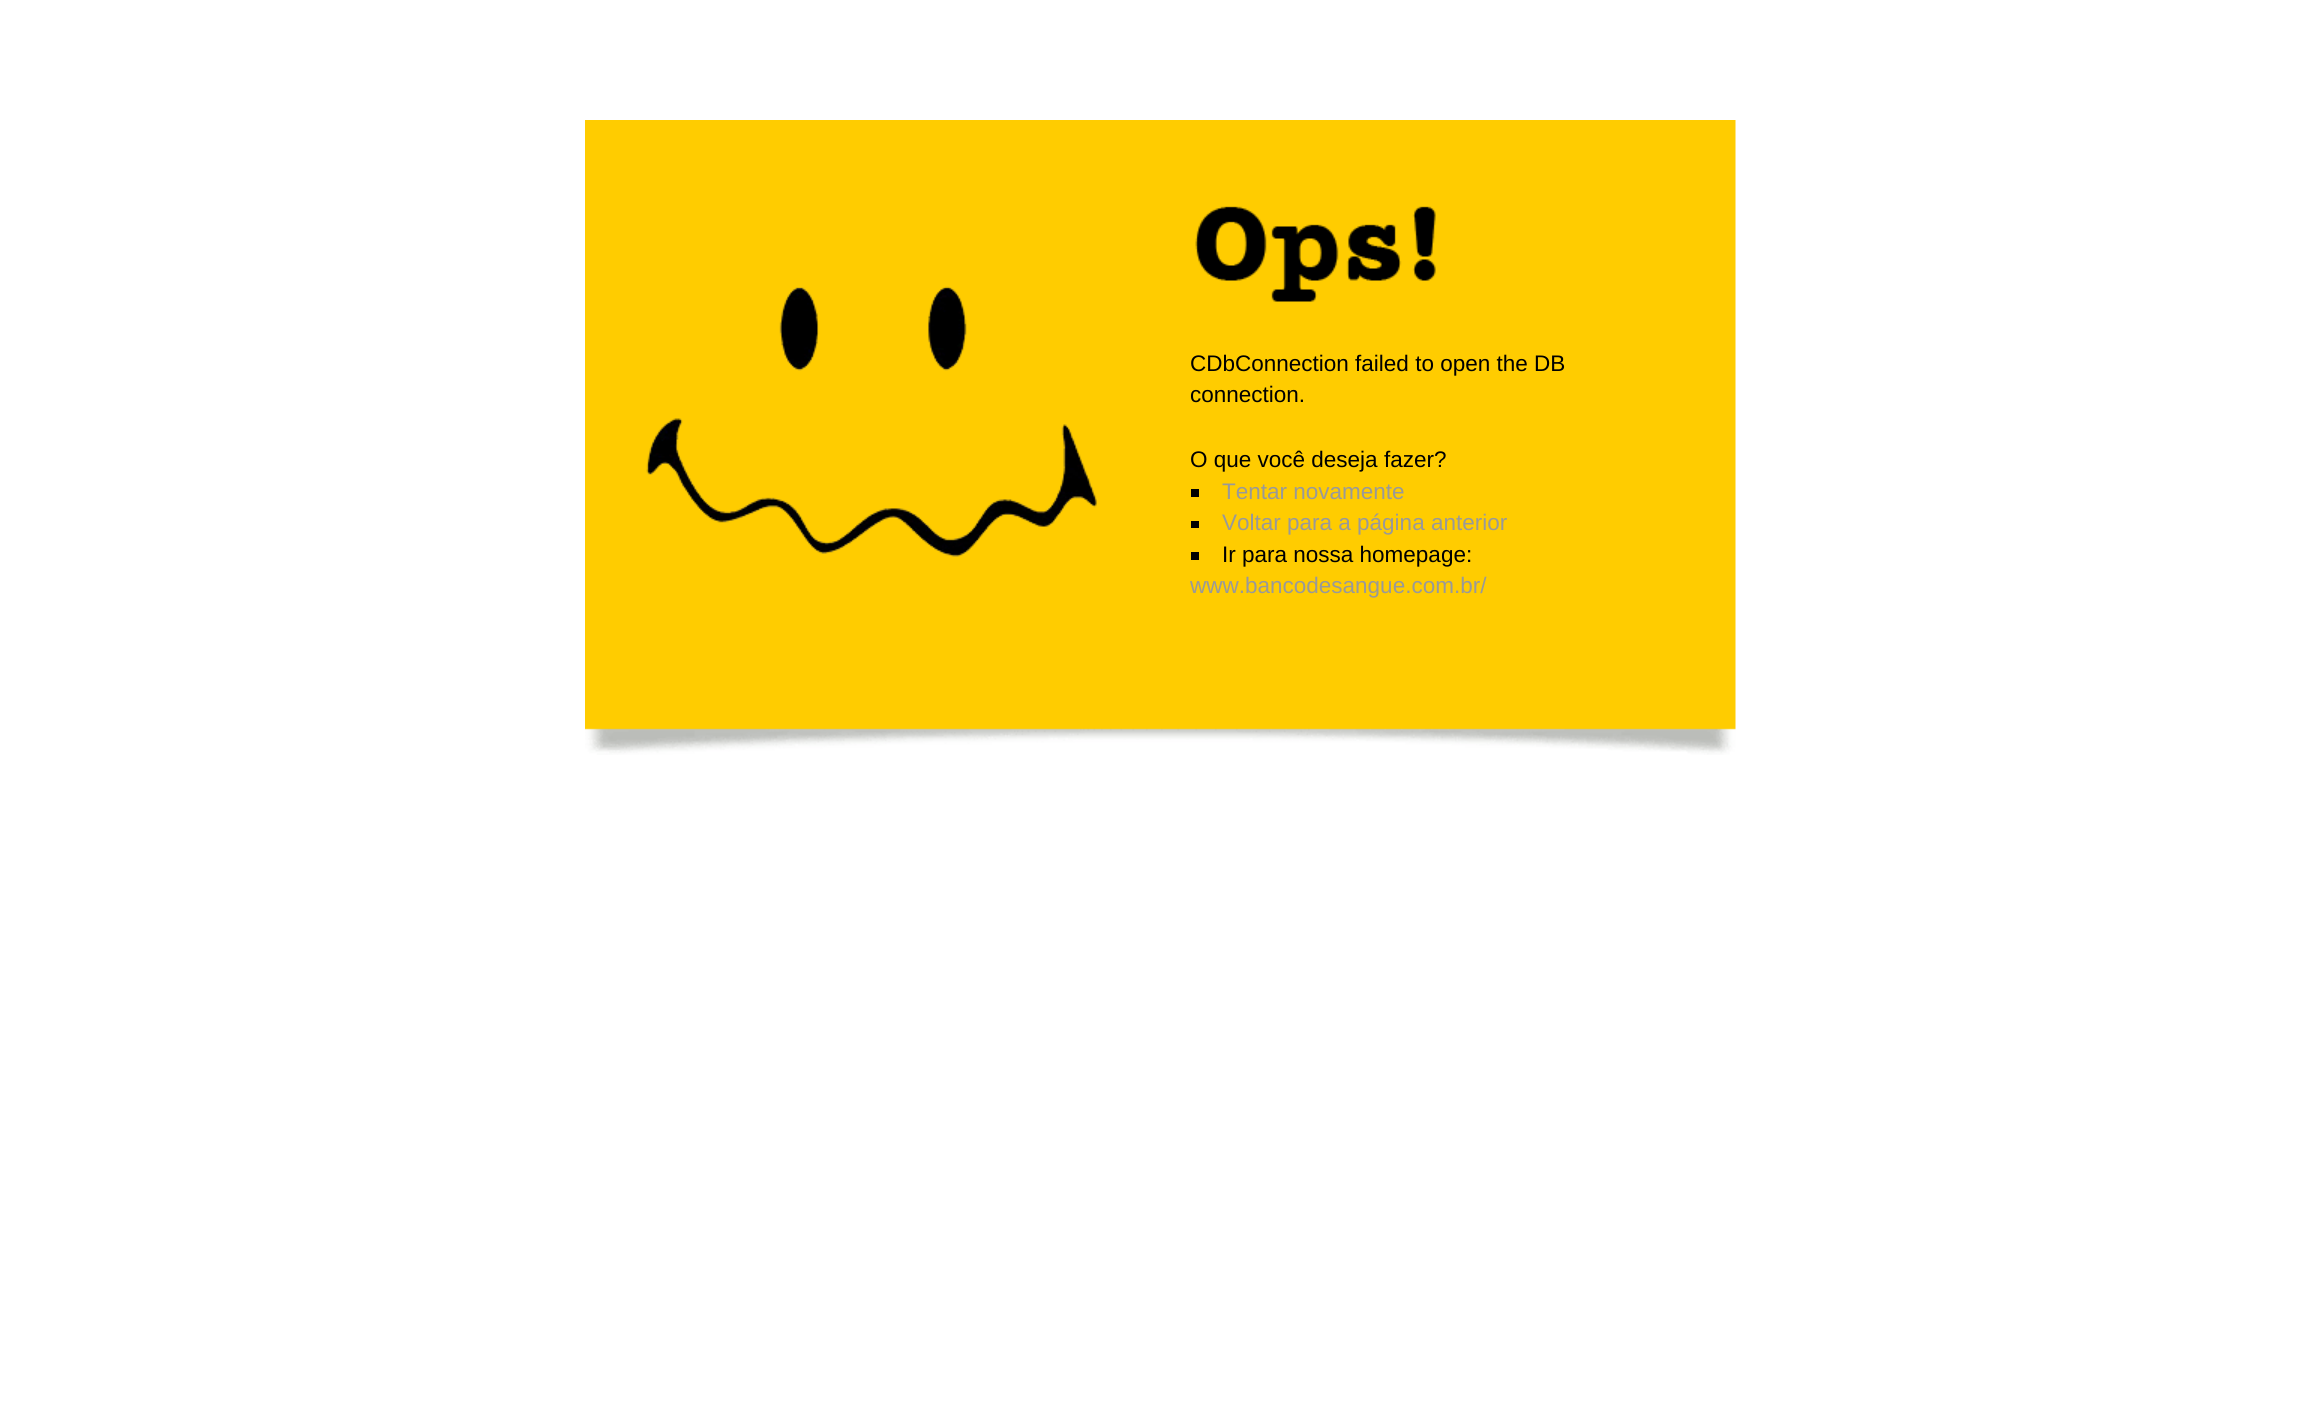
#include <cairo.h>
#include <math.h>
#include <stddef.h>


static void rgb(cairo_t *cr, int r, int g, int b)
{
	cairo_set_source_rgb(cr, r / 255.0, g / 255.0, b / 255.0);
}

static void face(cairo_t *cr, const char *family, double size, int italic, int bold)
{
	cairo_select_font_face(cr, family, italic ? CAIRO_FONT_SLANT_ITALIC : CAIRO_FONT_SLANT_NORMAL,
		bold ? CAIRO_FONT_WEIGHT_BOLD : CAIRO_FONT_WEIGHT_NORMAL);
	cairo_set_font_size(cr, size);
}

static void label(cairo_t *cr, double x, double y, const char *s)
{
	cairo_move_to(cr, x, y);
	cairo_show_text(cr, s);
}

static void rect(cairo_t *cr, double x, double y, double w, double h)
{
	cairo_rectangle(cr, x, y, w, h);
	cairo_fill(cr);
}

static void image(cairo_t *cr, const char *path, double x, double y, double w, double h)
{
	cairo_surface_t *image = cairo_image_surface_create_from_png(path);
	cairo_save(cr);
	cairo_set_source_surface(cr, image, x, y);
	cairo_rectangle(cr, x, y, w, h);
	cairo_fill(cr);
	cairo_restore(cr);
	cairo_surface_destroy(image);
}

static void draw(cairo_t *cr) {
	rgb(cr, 255, 255, 255);
	cairo_paint(cr);
	image(cr, "image0.png", 585, 120, 1151, 635);
	face(cr, "Liberation Sans", 22.5, 0, 0);
	rgb(cr, 0, 0, 0);
	label(cr, 1190, 371, "CDbConnection failed to open the DB");
	label(cr, 1190, 402, "connection.");
	label(cr, 1190, 467, "O que você deseja fazer?");
	rect(cr, 1191, 489, 8, 8);
	rgb(cr, 153, 153, 153);
	label(cr, 1222, 499, "Tentar novamente");
	rgb(cr, 0, 0, 0);
	rect(cr, 1191, 521, 8, 7);
	rgb(cr, 153, 153, 153);
	label(cr, 1222, 530, "Voltar para a página anterior");
	rgb(cr, 0, 0, 0);
	rect(cr, 1191, 552, 8, 8);
	label(cr, 1222, 562, "Ir para nossa homepage:");
	rgb(cr, 153, 153, 153);
	label(cr, 1190, 593, "www.bancodesangue.com.br/");
}

int main(void) {
	cairo_surface_t *surface = cairo_image_surface_create(CAIRO_FORMAT_RGB24, 2319, 1428);
	cairo_t *cr = cairo_create(surface);
	cairo_font_options_t *options = cairo_font_options_create();
	cairo_font_options_set_hint_metrics(options, CAIRO_HINT_METRICS_OFF);
	cairo_font_options_set_hint_style(options, CAIRO_HINT_STYLE_NONE);
	cairo_set_font_options(cr, options);
	cairo_set_miter_limit(cr, 4);
	draw(cr);
	cairo_surface_write_to_png(surface, "render.png");
	cairo_font_options_destroy(options);
	cairo_destroy(cr);
	cairo_surface_destroy(surface);
	return 0;
}
